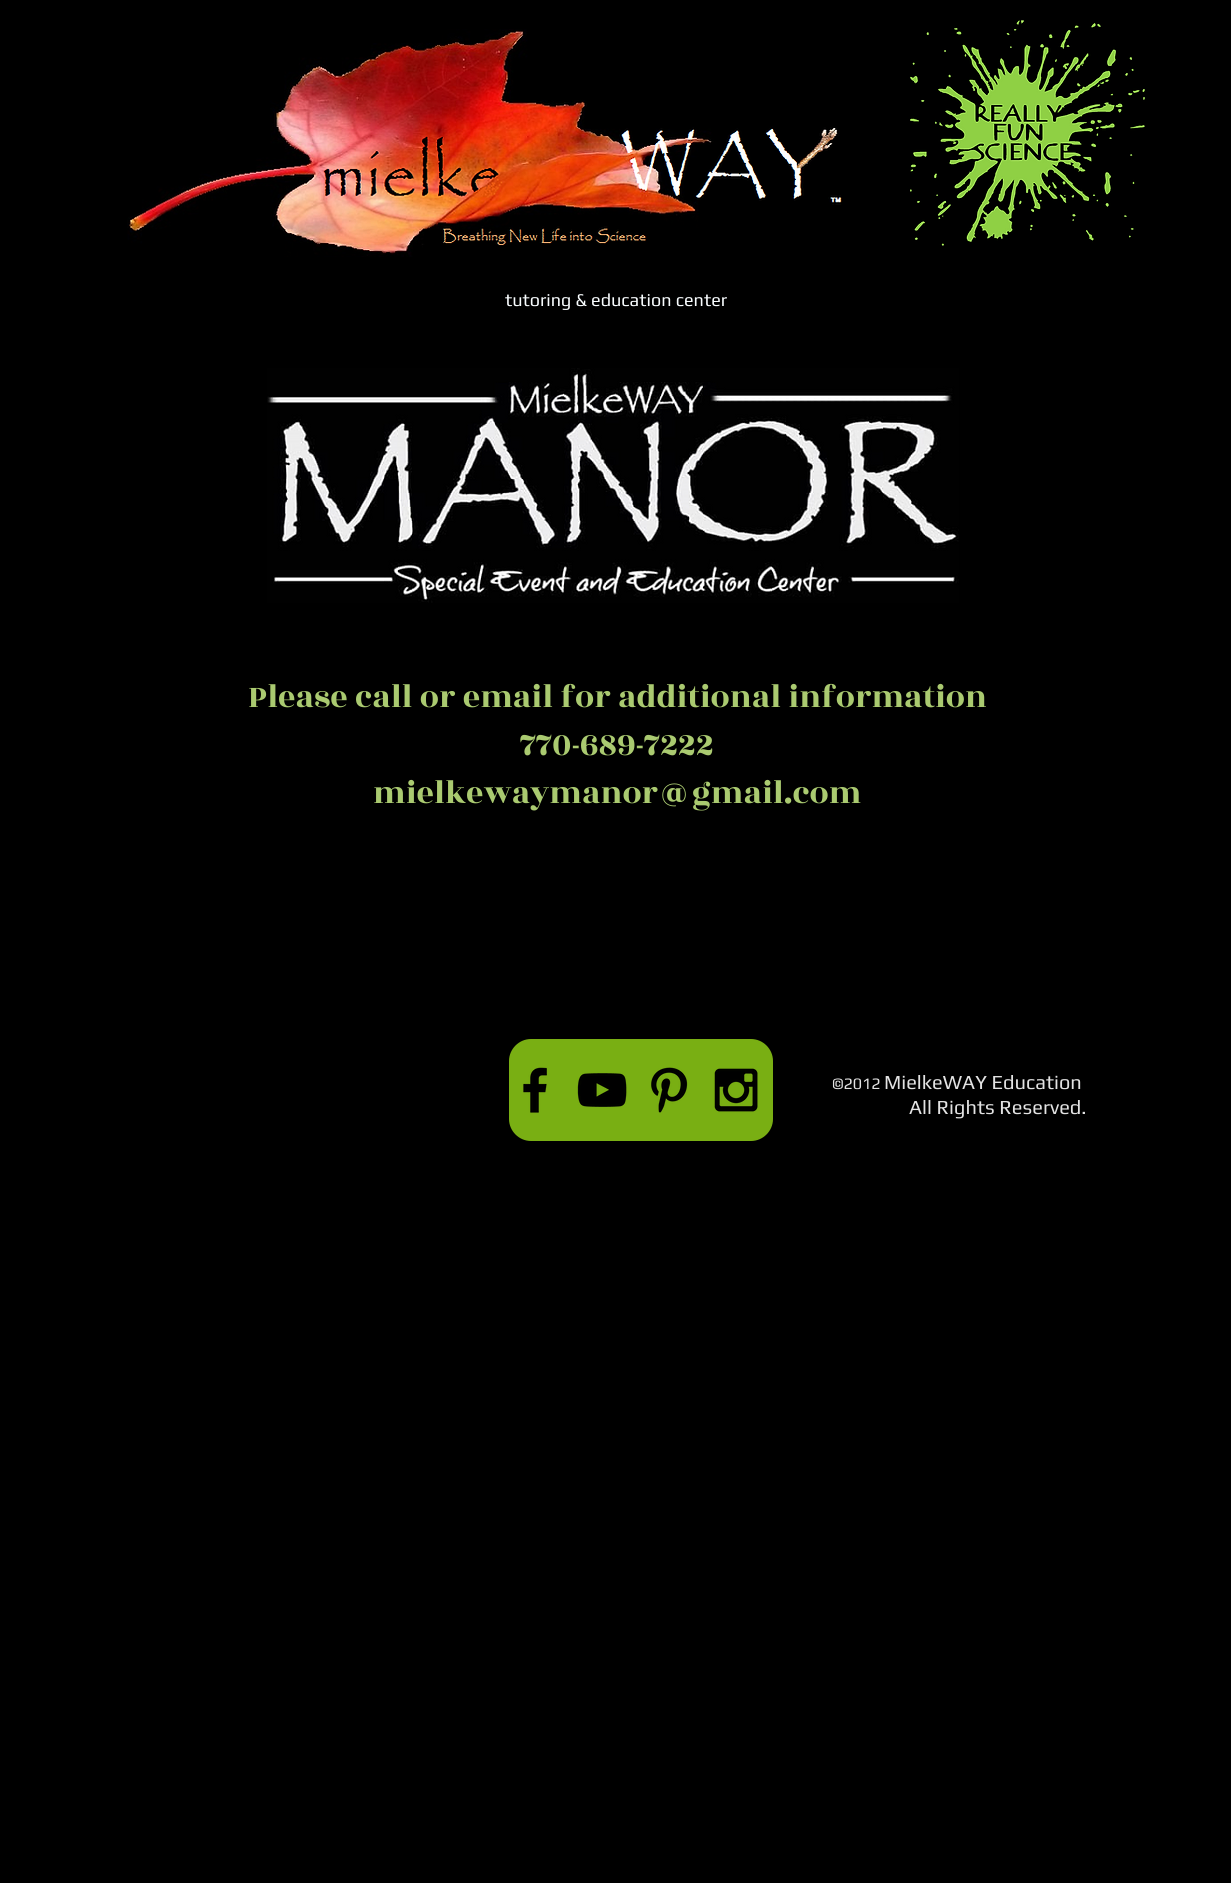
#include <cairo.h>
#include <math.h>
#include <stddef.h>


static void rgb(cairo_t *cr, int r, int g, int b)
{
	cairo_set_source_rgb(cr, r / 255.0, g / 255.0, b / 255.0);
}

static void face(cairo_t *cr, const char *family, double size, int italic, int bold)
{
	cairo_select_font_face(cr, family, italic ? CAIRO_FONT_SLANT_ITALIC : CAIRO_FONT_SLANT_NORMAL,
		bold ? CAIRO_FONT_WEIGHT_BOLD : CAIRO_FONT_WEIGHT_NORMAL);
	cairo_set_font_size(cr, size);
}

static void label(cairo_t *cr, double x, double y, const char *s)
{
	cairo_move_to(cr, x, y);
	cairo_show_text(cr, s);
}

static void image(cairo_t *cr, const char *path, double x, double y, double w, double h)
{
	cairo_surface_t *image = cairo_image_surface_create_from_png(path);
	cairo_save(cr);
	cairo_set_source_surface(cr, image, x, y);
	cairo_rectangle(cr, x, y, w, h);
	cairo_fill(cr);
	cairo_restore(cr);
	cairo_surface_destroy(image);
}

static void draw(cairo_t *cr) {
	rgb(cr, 0, 0, 0);
	cairo_paint(cr);
	image(cr, "image0.png", 127, 29, 715, 228);
	image(cr, "image1.png", 910, 20, 235, 226);
	face(cr, "Play", 18, 0, 0);
	rgb(cr, 249, 253, 255);
	label(cr, 505, 306, "tutoring & education center");
	image(cr, "image2.png", 267, 368, 692, 235);
	face(cr, "Rozha One", 34, 0, 0);
	rgb(cr, 170, 202, 112);
	label(cr, 248, 707, "Please call or email for additional information");
	label(cr, 520, 755, "770-689-7222");
	label(cr, 373, 803, "mielkewaymanor@gmail.com");
	rgb(cr, 121, 175, 19);
	cairo_new_path(cr);
	cairo_move_to(cr, 751, 1141);
	cairo_line_to(cr, 531, 1141);
	cairo_curve_to(cr, 519, 1141, 509, 1131, 509, 1119);
	cairo_line_to(cr, 509, 1061);
	cairo_curve_to(cr, 509, 1049, 519, 1039, 531, 1039);
	cairo_line_to(cr, 751, 1039);
	cairo_curve_to(cr, 763, 1039, 773, 1049, 773, 1061);
	cairo_line_to(cr, 773, 1119);
	cairo_curve_to(cr, 773, 1131, 763, 1141, 751, 1141);
	cairo_close_path(cr);
	cairo_fill(cr);
	image(cr, "image3.png", 523, 1067, 24, 46);
	image(cr, "image4.png", 577, 1073, 50, 34);
	image(cr, "image5.png", 651, 1067, 37, 46);
	image(cr, "image6.png", 714, 1068, 44, 44);
	face(cr, "Play", 16, 0, 0);
	rgb(cr, 227, 227, 227);
	label(cr, 832, 1089, "©2012");
	face(cr, "Play", 20, 0, 0);
	label(cr, 884, 1089, "MielkeWAY Education");
	label(cr, 909, 1114, "All Rights Reserved.");
}

int main(void) {
	cairo_surface_t *surface = cairo_image_surface_create(CAIRO_FORMAT_RGB24, 1231, 1883);
	cairo_t *cr = cairo_create(surface);
	cairo_font_options_t *options = cairo_font_options_create();
	cairo_font_options_set_hint_metrics(options, CAIRO_HINT_METRICS_OFF);
	cairo_font_options_set_hint_style(options, CAIRO_HINT_STYLE_NONE);
	cairo_set_font_options(cr, options);
	cairo_set_miter_limit(cr, 4);
	draw(cr);
	cairo_surface_write_to_png(surface, "render.png");
	cairo_font_options_destroy(options);
	cairo_destroy(cr);
	cairo_surface_destroy(surface);
	return 0;
}
